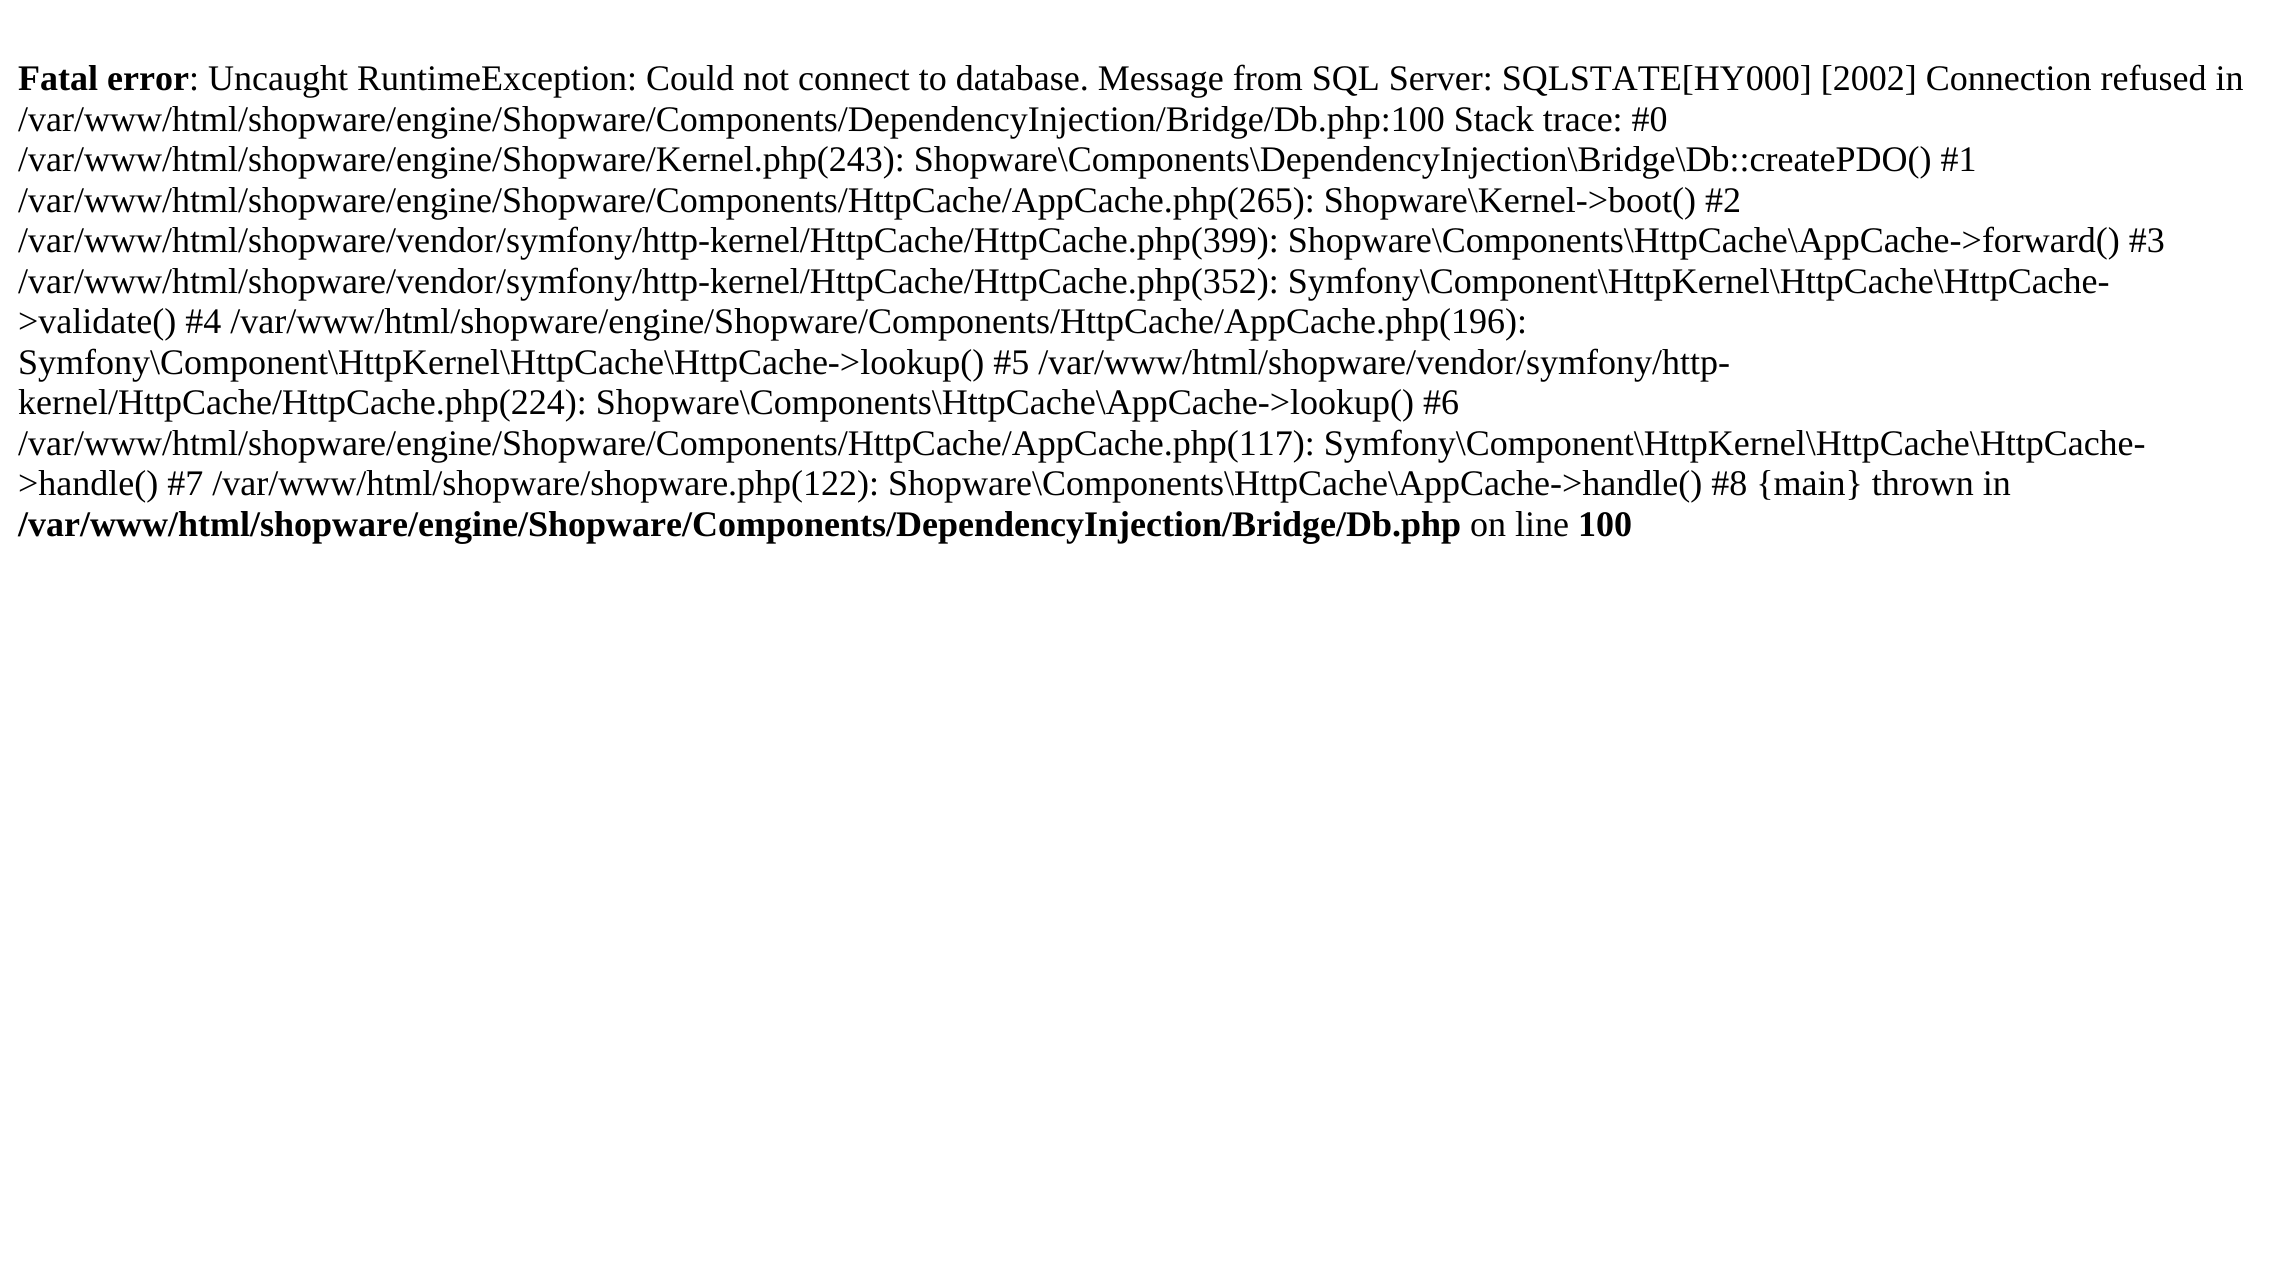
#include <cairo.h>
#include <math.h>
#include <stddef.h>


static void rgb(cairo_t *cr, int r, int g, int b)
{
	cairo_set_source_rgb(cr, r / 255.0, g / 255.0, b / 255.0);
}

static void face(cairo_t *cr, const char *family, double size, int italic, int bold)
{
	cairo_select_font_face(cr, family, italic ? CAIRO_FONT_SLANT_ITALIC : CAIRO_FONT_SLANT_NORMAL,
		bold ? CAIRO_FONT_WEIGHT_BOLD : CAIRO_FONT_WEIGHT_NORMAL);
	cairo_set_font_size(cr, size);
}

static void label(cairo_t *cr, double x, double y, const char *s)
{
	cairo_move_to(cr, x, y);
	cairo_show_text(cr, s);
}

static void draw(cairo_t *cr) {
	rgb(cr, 255, 255, 255);
	cairo_paint(cr);
	face(cr, "Liberation Serif", 36, 0, 1);
	rgb(cr, 0, 0, 0);
	label(cr, 18, 90, "Fatal error");
	face(cr, "Liberation Serif", 36, 0, 0);
	label(cr, 189, 90, ": Uncaught RuntimeException: Could not connect to database. Message from SQL Server: SQLSTATE[HY000] [2002] Connection refused in");
	label(cr, 18, 131, "/var/www/html/shopware/engine/Shopware/Components/DependencyInjection/Bridge/Db.php:100 Stack trace: #0");
	label(cr, 18, 171, "/var/www/html/shopware/engine/Shopware/Kernel.php(243): Shopware\\Components\\DependencyInjection\\Bridge\\Db::createPDO() #1");
	label(cr, 18, 212, "/var/www/html/shopware/engine/Shopware/Components/HttpCache/AppCache.php(265): Shopware\\Kernel->boot() #2");
	label(cr, 18, 252, "/var/www/html/shopware/vendor/symfony/http-kernel/HttpCache/HttpCache.php(399): Shopware\\Components\\HttpCache\\AppCache->forward() #3");
	label(cr, 18, 293, "/var/www/html/shopware/vendor/symfony/http-kernel/HttpCache/HttpCache.php(352): Symfony\\Component\\HttpKernel\\HttpCache\\HttpCache-");
	label(cr, 18, 333, ">validate() #4 /var/www/html/shopware/engine/Shopware/Components/HttpCache/AppCache.php(196):");
	label(cr, 18, 374, "Symfony\\Component\\HttpKernel\\HttpCache\\HttpCache->lookup() #5 /var/www/html/shopware/vendor/symfony/http-");
	label(cr, 18, 414, "kernel/HttpCache/HttpCache.php(224): Shopware\\Components\\HttpCache\\AppCache->lookup() #6");
	label(cr, 18, 455, "/var/www/html/shopware/engine/Shopware/Components/HttpCache/AppCache.php(117): Symfony\\Component\\HttpKernel\\HttpCache\\HttpCache-");
	label(cr, 18, 495, ">handle() #7 /var/www/html/shopware/shopware.php(122): Shopware\\Components\\HttpCache\\AppCache->handle() #8 {main} thrown in");
	face(cr, "Liberation Serif", 36, 0, 1);
	label(cr, 18, 536, "/var/www/html/shopware/engine/Shopware/Components/DependencyInjection/Bridge/Db.php");
	face(cr, "Liberation Serif", 36, 0, 0);
	label(cr, 1470, 536, "on line");
	face(cr, "Liberation Serif", 36, 0, 1);
	label(cr, 1578, 536, "100");
}

int main(void) {
	cairo_surface_t *surface = cairo_image_surface_create(CAIRO_FORMAT_RGB24, 2273, 1270);
	cairo_t *cr = cairo_create(surface);
	cairo_font_options_t *options = cairo_font_options_create();
	cairo_font_options_set_hint_metrics(options, CAIRO_HINT_METRICS_OFF);
	cairo_font_options_set_hint_style(options, CAIRO_HINT_STYLE_NONE);
	cairo_set_font_options(cr, options);
	cairo_set_miter_limit(cr, 4);
	draw(cr);
	cairo_surface_write_to_png(surface, "render.png");
	cairo_font_options_destroy(options);
	cairo_destroy(cr);
	cairo_surface_destroy(surface);
	return 0;
}
